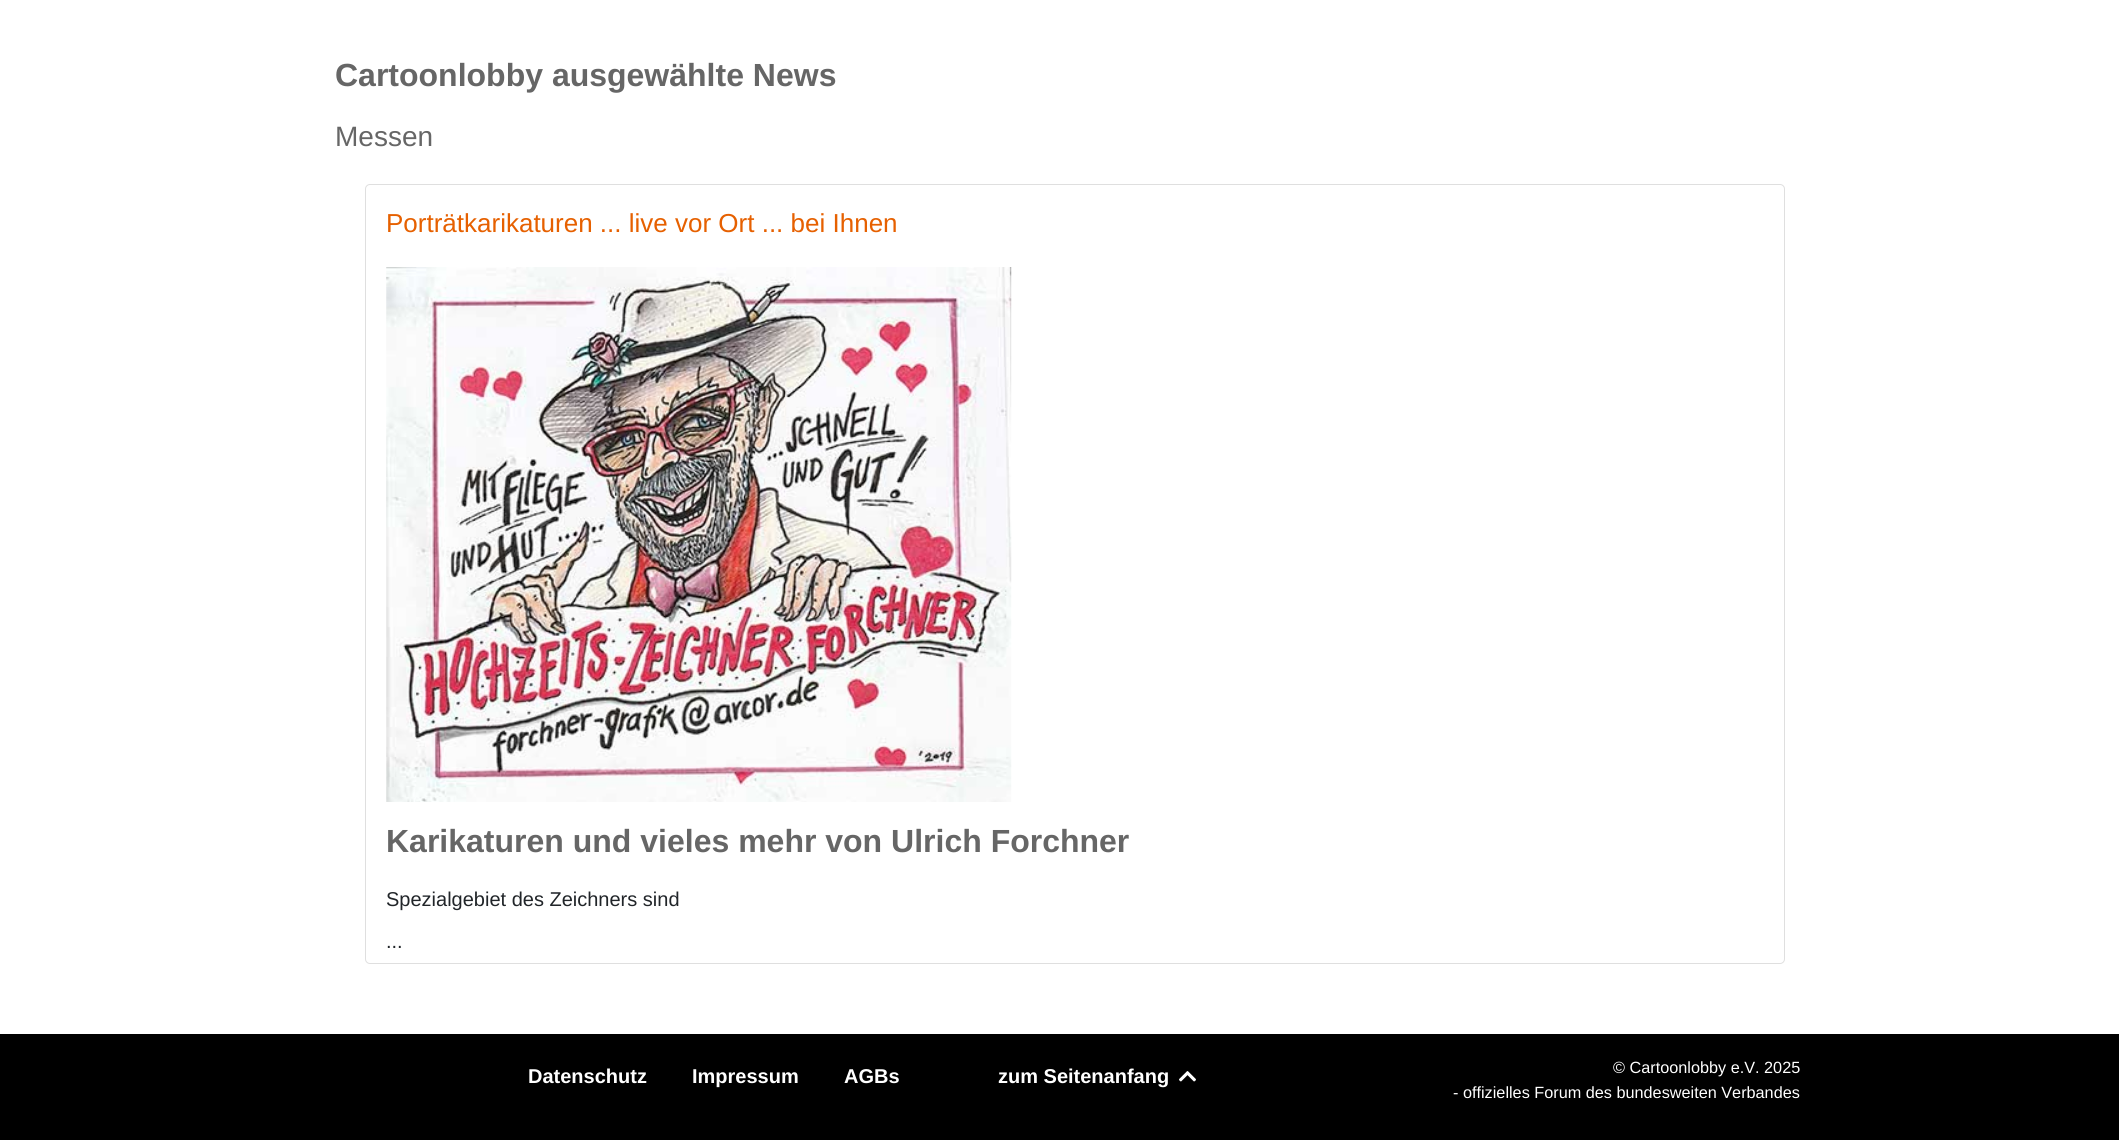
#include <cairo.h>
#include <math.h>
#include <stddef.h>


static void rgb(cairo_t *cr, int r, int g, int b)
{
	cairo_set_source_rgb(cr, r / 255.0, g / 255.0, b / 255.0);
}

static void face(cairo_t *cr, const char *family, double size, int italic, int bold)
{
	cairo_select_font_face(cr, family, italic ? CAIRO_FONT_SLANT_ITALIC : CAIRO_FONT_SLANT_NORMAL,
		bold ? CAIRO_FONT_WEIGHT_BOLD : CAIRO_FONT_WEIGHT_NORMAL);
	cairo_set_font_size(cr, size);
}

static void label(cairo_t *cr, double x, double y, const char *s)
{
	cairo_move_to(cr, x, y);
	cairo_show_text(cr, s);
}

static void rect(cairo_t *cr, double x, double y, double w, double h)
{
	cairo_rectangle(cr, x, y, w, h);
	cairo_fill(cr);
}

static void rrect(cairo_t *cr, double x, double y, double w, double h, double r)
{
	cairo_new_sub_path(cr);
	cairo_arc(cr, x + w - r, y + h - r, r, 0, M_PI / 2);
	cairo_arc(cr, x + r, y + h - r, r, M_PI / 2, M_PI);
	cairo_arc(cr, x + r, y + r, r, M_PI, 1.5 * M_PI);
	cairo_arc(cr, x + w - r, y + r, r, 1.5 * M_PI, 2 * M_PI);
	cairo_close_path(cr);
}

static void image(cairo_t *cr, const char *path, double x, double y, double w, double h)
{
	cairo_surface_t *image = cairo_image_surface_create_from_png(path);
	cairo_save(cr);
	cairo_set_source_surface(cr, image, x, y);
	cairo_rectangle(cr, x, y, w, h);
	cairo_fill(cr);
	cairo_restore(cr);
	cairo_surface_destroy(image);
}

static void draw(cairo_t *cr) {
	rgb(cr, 255, 255, 255);
	cairo_paint(cr);
	face(cr, "Liberation Sans", 32, 0, 1);
	rgb(cr, 102, 102, 102);
	label(cr, 335, 86, "Cartoonlobby ausgewählte News");
	face(cr, "Liberation Sans", 28, 0, 0);
	label(cr, 335, 146, "Messen");
	rrect(cr, 365.5, 184.5, 1419, 779, 4.5);
	rgb(cr, 223, 223, 223);
	cairo_set_line_width(cr, 1);
	cairo_stroke(cr);
	face(cr, "Liberation Sans", 26, 0, 0);
	rgb(cr, 230, 96, 0);
	label(cr, 386, 232, "Porträtkarikaturen ... live vor Ort ... bei Ihnen");
	image(cr, "image0.png", 386, 267, 626, 535);
	face(cr, "Liberation Sans", 32, 0, 1);
	rgb(cr, 102, 102, 102);
	label(cr, 386, 852, "Karikaturen und vieles mehr von Ulrich Forchner");
	face(cr, "Liberation Sans", 20, 0, 0);
	rgb(cr, 33, 37, 41);
	label(cr, 386, 906, "Spezialgebiet des Zeichners sind");
	label(cr, 386, 948, "...");
	rgb(cr, 0, 0, 0);
	rect(cr, 0, 1034, 2119, 106);
	face(cr, "Liberation Sans", 20, 0, 1);
	rgb(cr, 255, 255, 255);
	label(cr, 528, 1083, "Datenschutz");
	label(cr, 692, 1083, "Impressum");
	label(cr, 844, 1083, "AGBs");
	label(cr, 998, 1083, "zum Seitenanfang");
	image(cr, "image1.png", 1179, 1071, 17, 11);
	face(cr, "Liberation Sans", 16.25, 0, 0);
	label(cr, 1613, 1073, "© Cartoonlobby e.V. 2025");
	label(cr, 1453, 1098, "- offizielles Forum des bundesweiten Verbandes");
}

int main(void) {
	cairo_surface_t *surface = cairo_image_surface_create(CAIRO_FORMAT_RGB24, 2119, 1140);
	cairo_t *cr = cairo_create(surface);
	cairo_font_options_t *options = cairo_font_options_create();
	cairo_font_options_set_hint_metrics(options, CAIRO_HINT_METRICS_OFF);
	cairo_font_options_set_hint_style(options, CAIRO_HINT_STYLE_NONE);
	cairo_set_font_options(cr, options);
	cairo_set_miter_limit(cr, 4);
	draw(cr);
	cairo_surface_write_to_png(surface, "render.png");
	cairo_font_options_destroy(options);
	cairo_destroy(cr);
	cairo_surface_destroy(surface);
	return 0;
}
